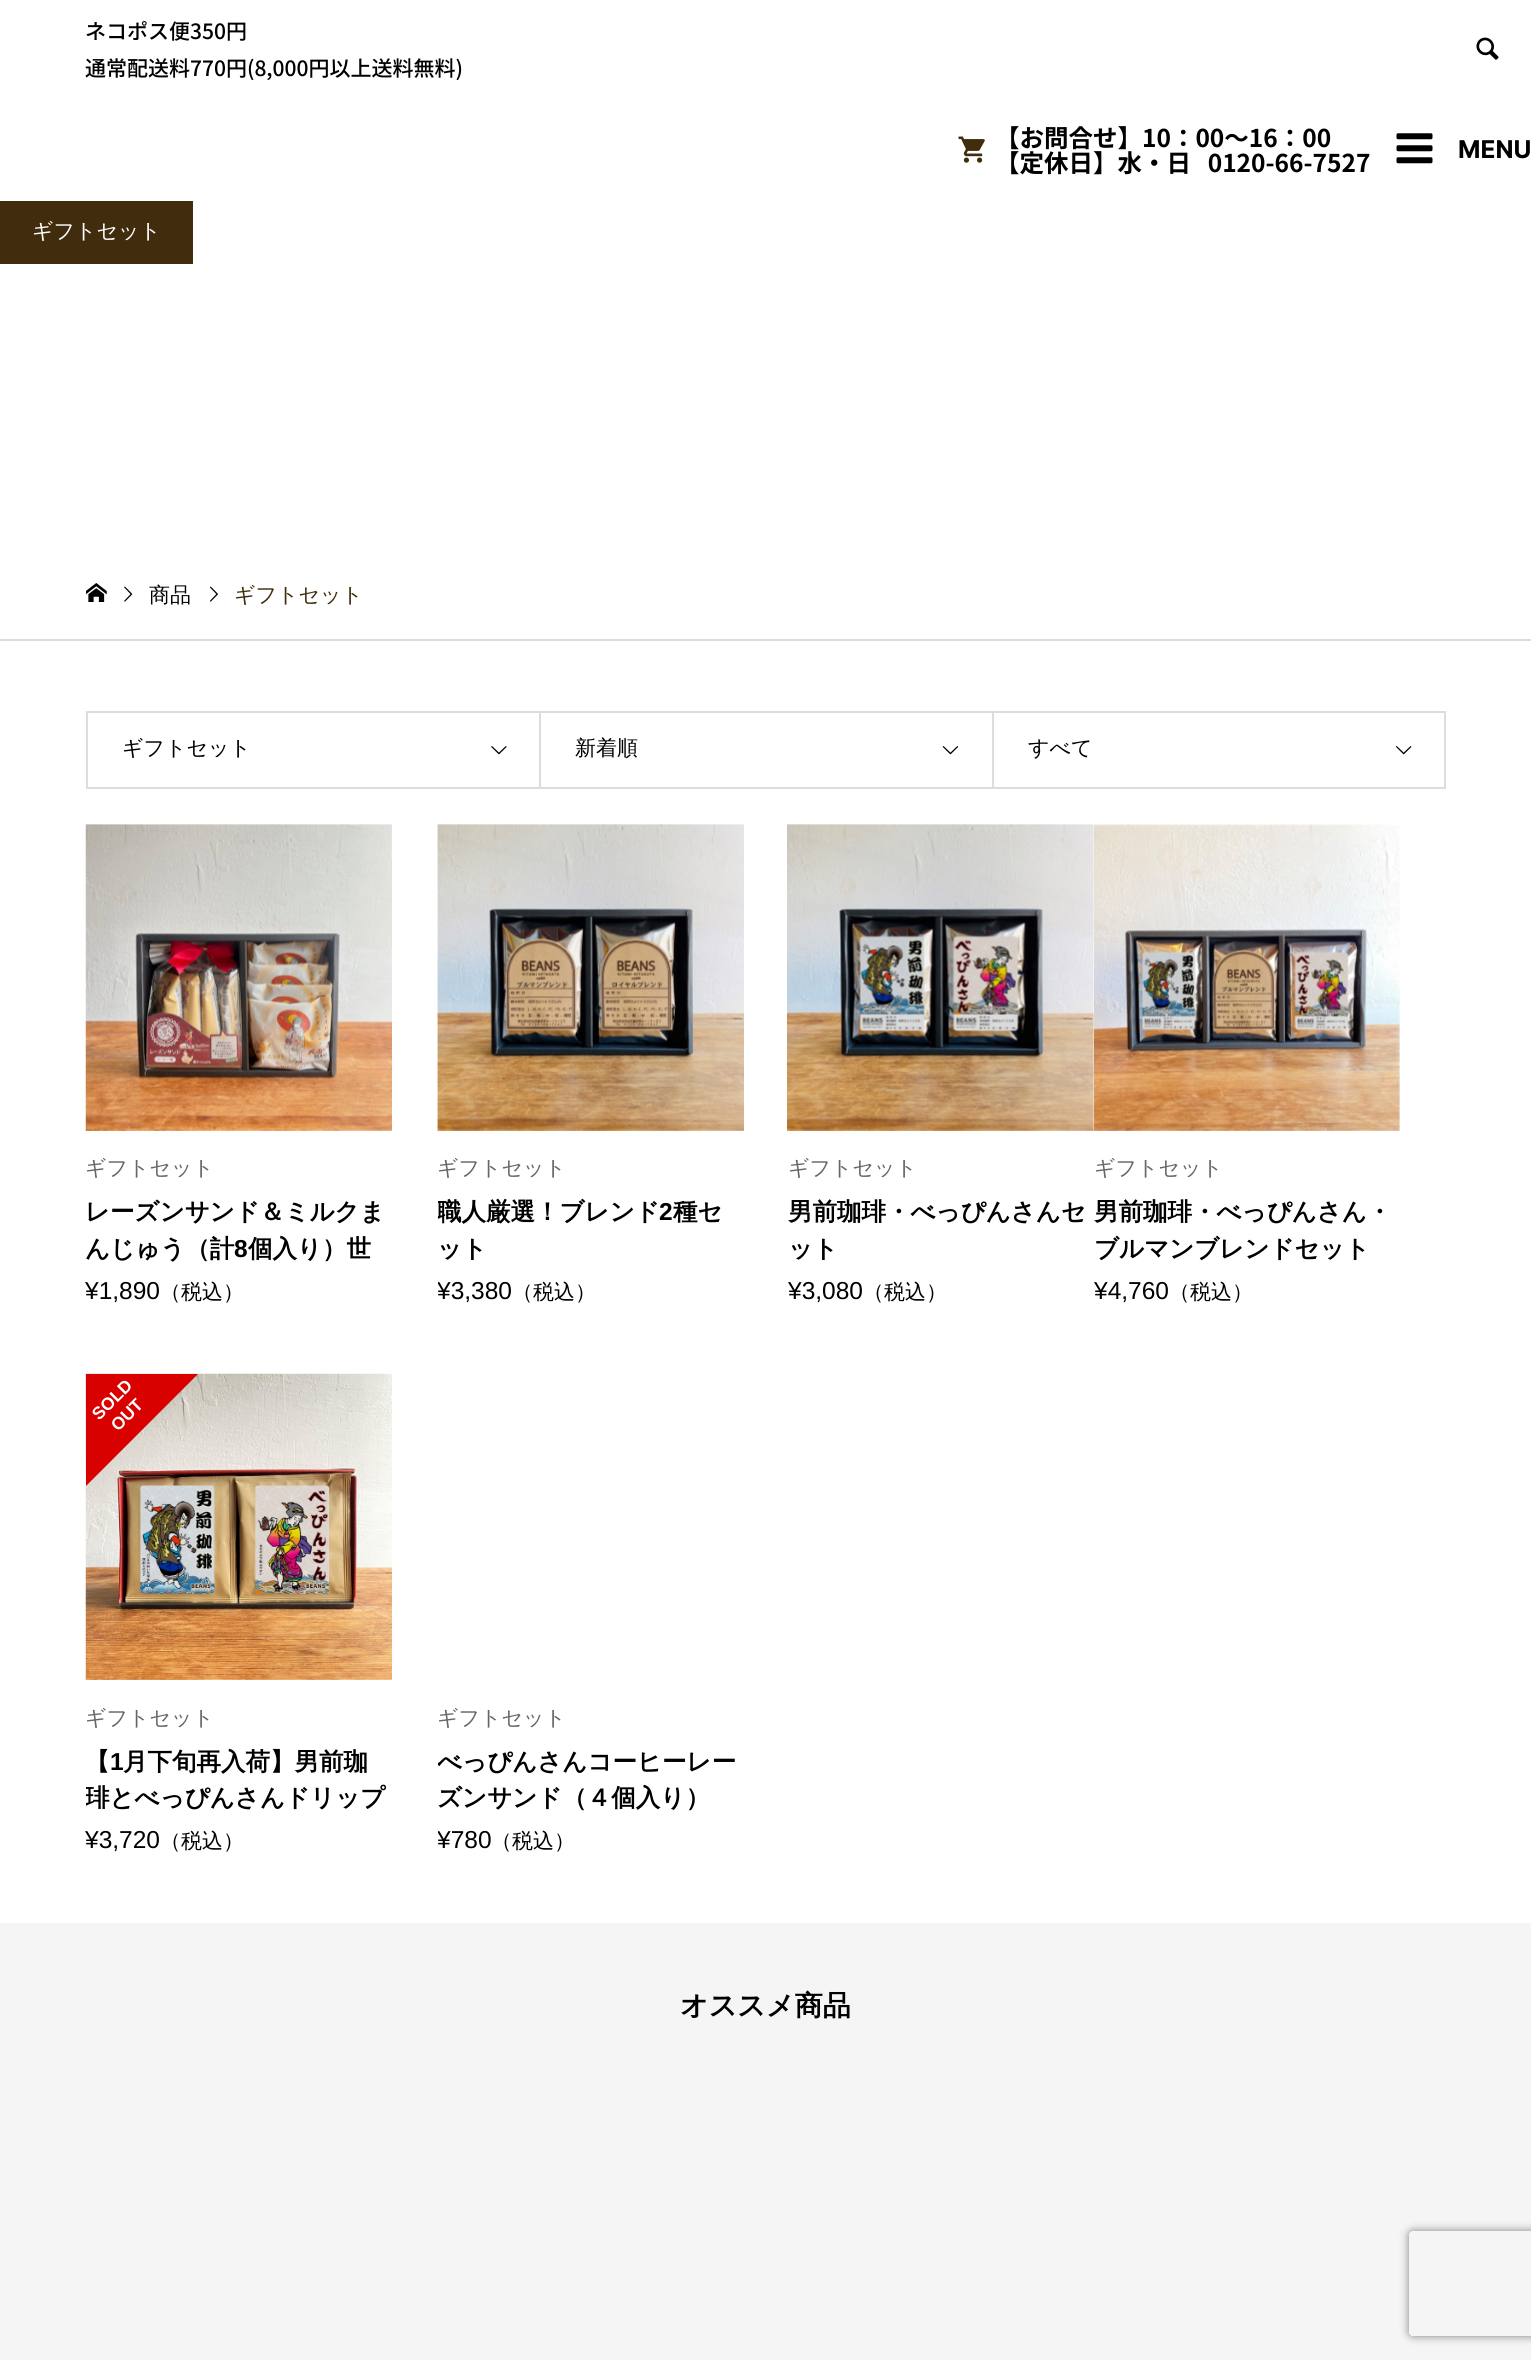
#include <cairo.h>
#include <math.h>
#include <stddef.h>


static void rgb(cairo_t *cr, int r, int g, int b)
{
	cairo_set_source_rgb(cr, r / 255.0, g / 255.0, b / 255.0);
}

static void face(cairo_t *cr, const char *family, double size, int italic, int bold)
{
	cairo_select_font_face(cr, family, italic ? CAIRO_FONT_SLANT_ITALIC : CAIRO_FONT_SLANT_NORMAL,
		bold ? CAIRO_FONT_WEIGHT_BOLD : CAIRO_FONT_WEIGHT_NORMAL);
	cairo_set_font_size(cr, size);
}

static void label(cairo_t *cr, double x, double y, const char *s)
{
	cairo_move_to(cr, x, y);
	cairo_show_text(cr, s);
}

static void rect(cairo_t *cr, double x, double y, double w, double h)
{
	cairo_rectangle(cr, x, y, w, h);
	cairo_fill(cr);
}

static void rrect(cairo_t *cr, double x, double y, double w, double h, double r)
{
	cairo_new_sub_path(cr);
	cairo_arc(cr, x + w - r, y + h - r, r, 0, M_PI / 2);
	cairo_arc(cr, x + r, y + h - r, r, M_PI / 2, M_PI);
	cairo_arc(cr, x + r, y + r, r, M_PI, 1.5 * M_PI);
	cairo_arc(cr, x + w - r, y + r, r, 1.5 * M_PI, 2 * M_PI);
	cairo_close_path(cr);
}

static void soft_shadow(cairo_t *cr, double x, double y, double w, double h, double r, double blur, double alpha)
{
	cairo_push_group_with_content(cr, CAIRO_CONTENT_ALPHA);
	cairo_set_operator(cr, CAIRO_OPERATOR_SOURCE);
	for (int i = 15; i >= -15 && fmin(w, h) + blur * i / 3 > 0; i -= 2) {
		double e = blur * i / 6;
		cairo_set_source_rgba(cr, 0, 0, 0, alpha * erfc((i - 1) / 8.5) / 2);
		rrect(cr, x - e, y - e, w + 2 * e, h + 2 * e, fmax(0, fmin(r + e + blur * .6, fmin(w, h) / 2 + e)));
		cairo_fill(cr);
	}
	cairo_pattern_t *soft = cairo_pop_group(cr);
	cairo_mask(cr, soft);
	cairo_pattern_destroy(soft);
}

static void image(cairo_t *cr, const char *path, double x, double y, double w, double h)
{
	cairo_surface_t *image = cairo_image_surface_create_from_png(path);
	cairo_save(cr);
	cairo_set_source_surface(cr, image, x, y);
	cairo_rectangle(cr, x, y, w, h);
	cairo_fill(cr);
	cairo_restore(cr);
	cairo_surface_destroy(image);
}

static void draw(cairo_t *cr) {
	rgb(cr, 255, 255, 255);
	cairo_paint(cr);
	face(cr, "Noto Sans JP Medium", 21, 0, 0);
	rgb(cr, 0, 0, 0);
	label(cr, 85, 39, "ネコポス便350円");
	label(cr, 85, 76, "通常配送料770円(8,000円以上送料無料)");
	image(cr, "image0.png", 1476, 37, 23, 23);
	image(cr, "image1.png", 958, 136, 27, 27);
	face(cr, "Noto Sans JP", 24.5, 0, 1);
	label(cr, 995, 147, "【お問合せ】10：00～16：00");
	label(cr, 995, 172, "【定休日】水・日   0120-66-7527");
	image(cr, "image2.png", 1396, 133, 37, 31);
	face(cr, "Inter", 24.5, 0, 1);
	label(cr, 1458, 158, "MENU");
	rgb(cr, 65, 45, 14);
	rect(cr, 0, 201, 193, 63);
	face(cr, "WenQuanYi Zen Hei Medium", 21, 0, 0);
	rgb(cr, 255, 255, 255);
	label(cr, 32, 238, "ギフトセット");
	rgb(cr, 221, 221, 221);
	rect(cr, 0, 639, 1531, 2);
	image(cr, "image3.png", 86, 583, 21, 19);
	image(cr, "image4.png", 124, 586, 9, 16);
	rgb(cr, 0, 0, 0);
	label(cr, 149, 602, "商品");
	image(cr, "image5.png", 210, 586, 8, 16);
	rgb(cr, 65, 45, 14);
	label(cr, 234, 602, "ギフトセット");
	cairo_rectangle(cr, 87, 712, 1358, 76);
	rgb(cr, 221, 221, 221);
	cairo_stroke(cr);
	rgb(cr, 0, 0, 0);
	label(cr, 122, 755, "ギフトセット");
	image(cr, "image6.png", 491, 746, 16, 9);
	rgb(cr, 221, 221, 221);
	rect(cr, 539, 712, 2, 76);
	rgb(cr, 0, 0, 0);
	label(cr, 575, 755, "新着順");
	image(cr, "image7.png", 942, 746, 17, 9);
	rgb(cr, 221, 221, 221);
	rect(cr, 992, 712, 2, 76);
	rgb(cr, 0, 0, 0);
	label(cr, 1028, 755, "すべて");
	image(cr, "image8.png", 1396, 746, 16, 9);
	image(cr, "image9.png", 85, 824, 307, 307);
	image(cr, "image10.png", 86, 1129, 306, 2);
	rgb(cr, 102, 102, 102);
	label(cr, 85, 1175, "ギフトセット");
	face(cr, "WenQuanYi Zen Hei", 24.5, 0, 1);
	rgb(cr, 0, 0, 0);
	label(cr, 85, 1220, "レーズンサンド＆ミルクま");
	label(cr, 85, 1257, "んじゅう（計");
	face(cr, "Liberation Sans", 24.5, 0, 1);
	label(cr, 234, 1257, "8");
	face(cr, "WenQuanYi Zen Hei", 24.5, 0, 1);
	label(cr, 248, 1257, "個入り）世");
	face(cr, "Liberation Sans", 24.5, 0, 0);
	label(cr, 85, 1299, "¥1,890");
	face(cr, "WenQuanYi Zen Hei Medium", 21, 0, 0);
	label(cr, 160, 1299, "（税込）");
	image(cr, "image11.png", 437, 824, 307, 307);
	image(cr, "image12.png", 438, 1129, 306, 2);
	rgb(cr, 102, 102, 102);
	label(cr, 437, 1175, "ギフトセット");
	cairo_save(cr);
	cairo_rectangle(cr, 438, 1194, 306, 73);
	cairo_clip(cr);
	face(cr, "WenQuanYi Zen Hei", 24.5, 0, 1);
	rgb(cr, 0, 0, 0);
	label(cr, 437, 1220, "職人厳選！ブレンド");
	cairo_restore(cr);
	face(cr, "Liberation Sans", 24.5, 0, 1);
	rgb(cr, 0, 0, 0);
	label(cr, 659, 1220, "2");
	face(cr, "WenQuanYi Zen Hei", 24.5, 0, 1);
	label(cr, 673, 1220, "種セ");
	label(cr, 437, 1257, "ット");
	cairo_save(cr);
	cairo_rectangle(cr, 438, 824, 306, 480);
	cairo_clip(cr);
	face(cr, "Liberation Sans", 24.5, 0, 0);
	label(cr, 437, 1299, "¥3,380");
	cairo_restore(cr);
	face(cr, "WenQuanYi Zen Hei Medium", 21, 0, 0);
	label(cr, 512, 1299, "（税込）");
	image(cr, "image13.png", 787, 824, 307, 307);
	image(cr, "image14.png", 787, 1129, 307, 2);
	rgb(cr, 102, 102, 102);
	label(cr, 788, 1175, "ギフトセット");
	face(cr, "WenQuanYi Zen Hei", 24.5, 0, 1);
	rgb(cr, 0, 0, 0);
	label(cr, 788, 1220, "男前珈琲・べっぴんさんセ");
	label(cr, 788, 1257, "ット");
	face(cr, "Liberation Sans", 24.5, 0, 0);
	label(cr, 788, 1299, "¥3,080");
	face(cr, "WenQuanYi Zen Hei Medium", 21, 0, 0);
	label(cr, 863, 1299, "（税込）");
	image(cr, "image15.png", 1094, 824, 306, 307);
	image(cr, "image16.png", 1094, 1129, 306, 2);
	rgb(cr, 102, 102, 102);
	label(cr, 1094, 1175, "ギフトセット");
	face(cr, "WenQuanYi Zen Hei", 24.5, 0, 1);
	rgb(cr, 0, 0, 0);
	label(cr, 1094, 1220, "男前珈琲・べっぴんさん・");
	label(cr, 1094, 1257, "ブルマンブレンドセット");
	face(cr, "Liberation Sans", 24.5, 0, 0);
	label(cr, 1094, 1299, "¥4,760");
	face(cr, "WenQuanYi Zen Hei Medium", 21, 0, 0);
	label(cr, 1169, 1299, "（税込）");
	image(cr, "image17.png", 85, 1373, 307, 307);
	cairo_save(cr);
	cairo_rectangle(cr, 86, 1374, 306, 306);
	cairo_clip(cr);
	rgb(cr, 217, 0, 0);
	cairo_new_path(cr);
	cairo_move_to(cr, -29, 1373);
	cairo_line_to(cr, 85, 1259);
	cairo_line_to(cr, 199, 1373);
	cairo_line_to(cr, 85, 1487);
	cairo_close_path(cr);
	cairo_fill(cr);
	cairo_restore(cr);
	face(cr, "Liberation Sans", 17.5, 0, 1);
	rgb(cr, 255, 255, 255);
	cairo_save(cr);
	cairo_translate(cr, 99, 1421);
	cairo_rotate(cr, -45 * M_PI / 180);
	label(cr, 0, 0, "SOLD");
	cairo_restore(cr);
	cairo_save(cr);
	cairo_translate(cr, 118, 1432);
	cairo_rotate(cr, -45 * M_PI / 180);
	label(cr, 0, 0, "OUT");
	cairo_restore(cr);
	image(cr, "image18.png", 86, 1679, 306, 1);
	face(cr, "WenQuanYi Zen Hei Medium", 21, 0, 0);
	rgb(cr, 102, 102, 102);
	label(cr, 85, 1725, "ギフトセット");
	face(cr, "WenQuanYi Zen Hei", 24.5, 0, 1);
	rgb(cr, 0, 0, 0);
	label(cr, 85, 1770, "【");
	face(cr, "Liberation Sans", 24.5, 0, 1);
	label(cr, 110, 1770, "1");
	face(cr, "WenQuanYi Zen Hei", 24.5, 0, 1);
	label(cr, 123, 1770, "月下旬再入荷】男前珈");
	cairo_save(cr);
	cairo_rectangle(cr, 86, 1743, 306, 74);
	cairo_clip(cr);
	label(cr, 85, 1806, "琲とべっぴんさんドリップ");
	cairo_restore(cr);
	face(cr, "Liberation Sans", 24.5, 0, 0);
	label(cr, 85, 1848, "¥3,720");
	face(cr, "WenQuanYi Zen Hei Medium", 21, 0, 0);
	label(cr, 160, 1848, "（税込）");
	rgb(cr, 102, 102, 102);
	label(cr, 437, 1725, "ギフトセット");
	cairo_save(cr);
	cairo_rectangle(cr, 438, 1743, 306, 74);
	cairo_clip(cr);
	face(cr, "WenQuanYi Zen Hei", 24.5, 0, 1);
	rgb(cr, 0, 0, 0);
	label(cr, 437, 1770, "べっぴんさんコーヒーレー");
	cairo_restore(cr);
	face(cr, "WenQuanYi Zen Hei", 24.5, 0, 1);
	rgb(cr, 0, 0, 0);
	label(cr, 437, 1806, "ズンサンド（４個入り）");
	cairo_save(cr);
	cairo_rectangle(cr, 438, 1374, 306, 479);
	cairo_clip(cr);
	face(cr, "Liberation Sans", 24.5, 0, 0);
	label(cr, 437, 1848, "¥780");
	cairo_restore(cr);
	face(cr, "WenQuanYi Zen Hei Medium", 21, 0, 0);
	label(cr, 491, 1848, "（税込）");
	rgb(cr, 245, 245, 245);
	rect(cr, 0, 1923, 1531, 437);
	face(cr, "WenQuanYi Zen Hei", 28, 0, 1);
	rgb(cr, 0, 0, 0);
	label(cr, 680, 2015, "オススメ商品");
	cairo_save(cr);
	cairo_set_fill_rule(cr, CAIRO_FILL_RULE_EVEN_ODD);
	cairo_new_path(cr);
	cairo_move_to(cr, 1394, 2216);
	cairo_line_to(cr, 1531, 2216);
	cairo_line_to(cr, 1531, 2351);
	cairo_line_to(cr, 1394, 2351);
	cairo_close_path(cr);
	cairo_move_to(cr, 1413, 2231);
	cairo_line_to(cr, 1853, 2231);
	cairo_curve_to(cr, 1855, 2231, 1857, 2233, 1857, 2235);
	cairo_line_to(cr, 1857, 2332);
	cairo_curve_to(cr, 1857, 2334, 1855, 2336, 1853, 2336);
	cairo_line_to(cr, 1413, 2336);
	cairo_curve_to(cr, 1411, 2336, 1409, 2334, 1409, 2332);
	cairo_line_to(cr, 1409, 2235);
	cairo_curve_to(cr, 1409, 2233, 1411, 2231, 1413, 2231);
	cairo_close_path(cr);
	cairo_clip(cr);
	rgb(cr, 128, 128, 128);
	soft_shadow(cr, 1409, 2231, 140, 105, 4, 4.5, 1);
	cairo_restore(cr);
}

int main(void) {
	cairo_surface_t *surface = cairo_image_surface_create(CAIRO_FORMAT_RGB24, 1531, 2360);
	cairo_t *cr = cairo_create(surface);
	cairo_font_options_t *options = cairo_font_options_create();
	cairo_font_options_set_hint_metrics(options, CAIRO_HINT_METRICS_OFF);
	cairo_font_options_set_hint_style(options, CAIRO_HINT_STYLE_NONE);
	cairo_set_font_options(cr, options);
	cairo_set_miter_limit(cr, 4);
	draw(cr);
	cairo_surface_write_to_png(surface, "render.png");
	cairo_font_options_destroy(options);
	cairo_destroy(cr);
	cairo_surface_destroy(surface);
	return 0;
}
